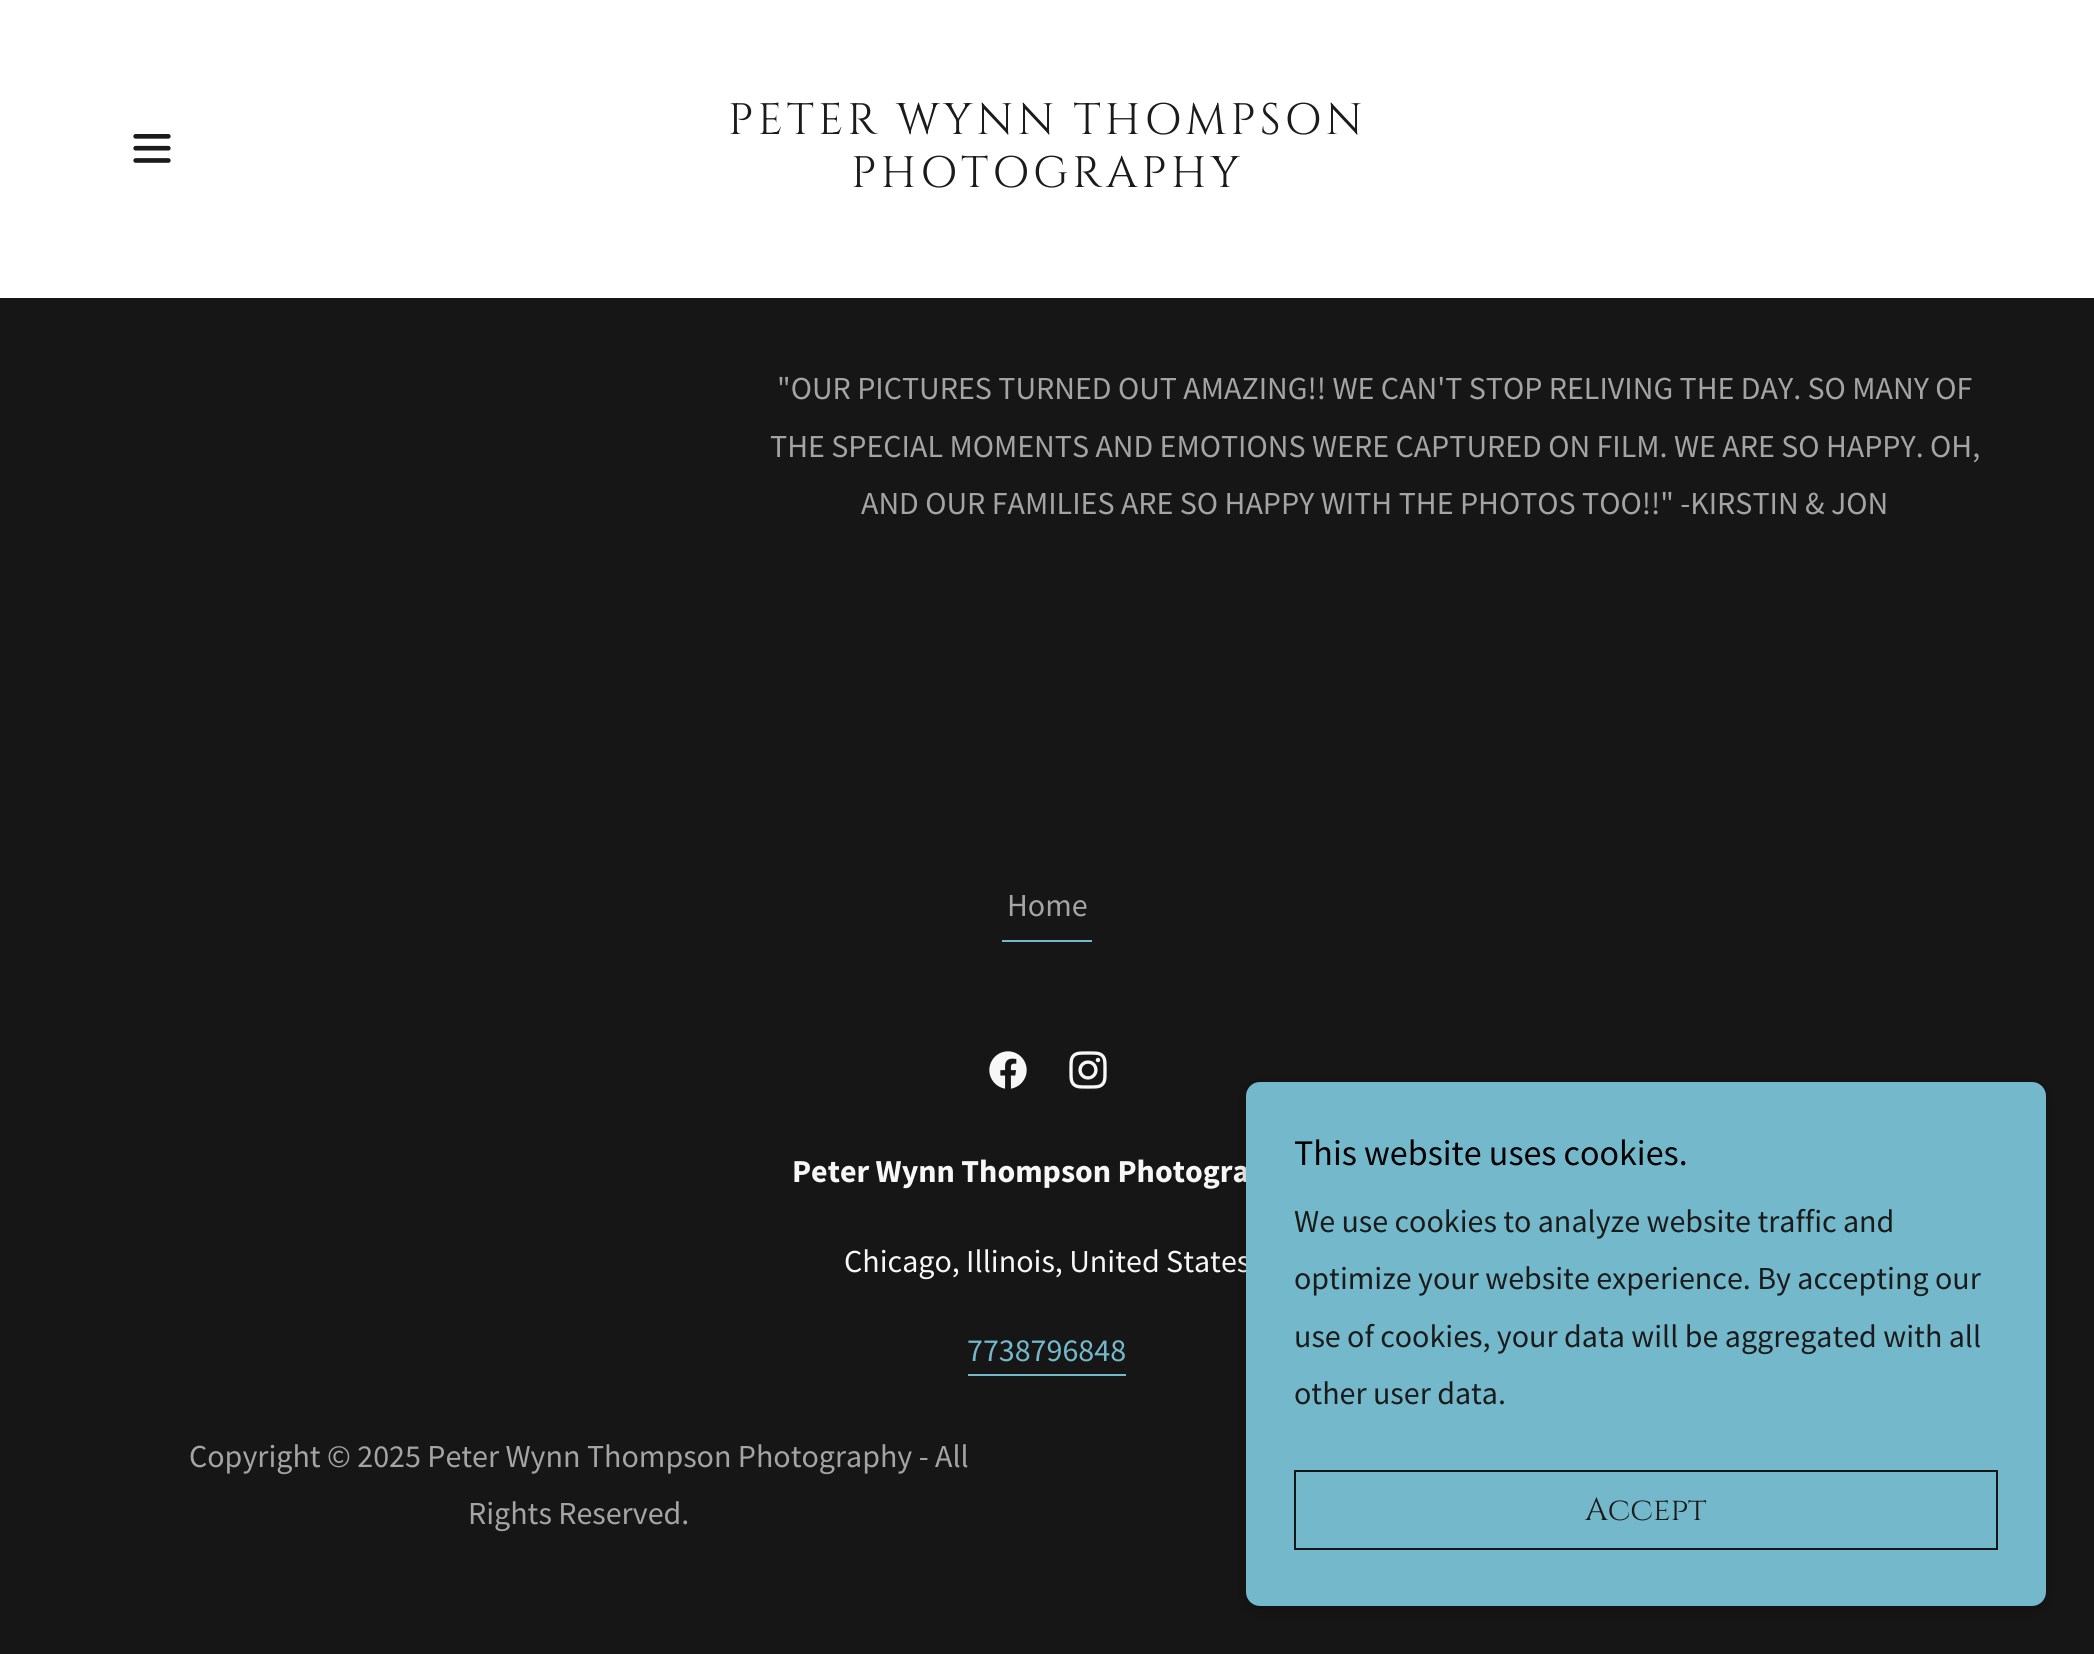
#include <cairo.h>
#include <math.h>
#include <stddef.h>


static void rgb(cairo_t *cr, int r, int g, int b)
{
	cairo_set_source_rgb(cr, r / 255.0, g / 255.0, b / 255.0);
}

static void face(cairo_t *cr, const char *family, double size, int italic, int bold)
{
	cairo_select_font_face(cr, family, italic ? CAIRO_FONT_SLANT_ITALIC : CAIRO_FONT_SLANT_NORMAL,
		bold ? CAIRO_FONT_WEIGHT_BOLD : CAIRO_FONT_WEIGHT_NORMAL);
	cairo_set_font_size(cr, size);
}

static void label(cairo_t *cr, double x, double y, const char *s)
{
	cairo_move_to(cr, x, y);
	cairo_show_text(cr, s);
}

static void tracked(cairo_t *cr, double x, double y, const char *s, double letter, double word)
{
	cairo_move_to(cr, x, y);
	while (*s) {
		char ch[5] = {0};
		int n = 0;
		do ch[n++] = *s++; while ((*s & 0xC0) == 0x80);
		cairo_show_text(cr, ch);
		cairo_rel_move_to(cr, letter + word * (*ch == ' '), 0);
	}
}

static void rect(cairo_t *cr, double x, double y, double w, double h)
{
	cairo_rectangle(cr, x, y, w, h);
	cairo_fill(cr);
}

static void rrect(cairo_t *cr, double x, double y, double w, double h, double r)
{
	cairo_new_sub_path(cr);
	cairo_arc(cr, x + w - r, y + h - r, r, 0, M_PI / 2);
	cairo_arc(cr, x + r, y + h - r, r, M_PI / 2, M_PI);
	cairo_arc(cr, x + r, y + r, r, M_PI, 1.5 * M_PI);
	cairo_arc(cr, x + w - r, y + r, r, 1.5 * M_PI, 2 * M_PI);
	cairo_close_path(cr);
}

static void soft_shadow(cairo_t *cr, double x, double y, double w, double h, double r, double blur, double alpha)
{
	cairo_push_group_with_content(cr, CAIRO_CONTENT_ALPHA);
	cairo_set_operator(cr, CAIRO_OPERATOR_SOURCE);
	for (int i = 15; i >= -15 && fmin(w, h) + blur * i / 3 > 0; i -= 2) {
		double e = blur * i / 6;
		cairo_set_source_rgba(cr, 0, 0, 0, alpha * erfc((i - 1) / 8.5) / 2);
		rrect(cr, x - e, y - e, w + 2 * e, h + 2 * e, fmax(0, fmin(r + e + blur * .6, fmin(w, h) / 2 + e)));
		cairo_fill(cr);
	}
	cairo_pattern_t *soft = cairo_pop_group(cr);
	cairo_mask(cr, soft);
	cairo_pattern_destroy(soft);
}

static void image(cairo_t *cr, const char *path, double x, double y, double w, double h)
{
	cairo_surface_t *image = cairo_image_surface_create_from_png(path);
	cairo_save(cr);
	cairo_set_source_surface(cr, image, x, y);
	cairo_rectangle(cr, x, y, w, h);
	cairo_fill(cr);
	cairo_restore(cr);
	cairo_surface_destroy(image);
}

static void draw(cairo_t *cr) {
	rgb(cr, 22, 22, 22);
	cairo_paint(cr);
	rgb(cr, 255, 255, 255);
	rect(cr, 0, 0, 2094, 298);
	image(cr, "image0.png", 133, 134, 38, 29);
	face(cr, "Cinzel", 44, 0, 0);
	rgb(cr, 27, 27, 27);
	tracked(cr, 728, 134, "PETER WYNN THOMPSON", 4, 0);
	tracked(cr, 851, 187, "PHOTOGRAPHY", 4, 0);
	face(cr, "Source Sans Pro", 32, 0, 0);
	rgb(cr, 164, 164, 164);
	label(cr, 777, 399, "\"OUR PICTURES TURNED OUT AMAZING!! WE CAN'T STOP RELIVING THE DAY. SO MANY OF");
	label(cr, 770, 457, "THE SPECIAL MOMENTS AND EMOTIONS WERE CAPTURED ON FILM. WE ARE SO HAPPY. OH,");
	label(cr, 861, 514, "AND OUR FAMILIES ARE SO HAPPY WITH THE PHOTOS TOO!!\" -KIRSTIN & JON");
	rgb(cr, 116, 185, 203);
	rect(cr, 1002, 940, 90, 2);
	rgb(cr, 164, 164, 164);
	label(cr, 1007, 916, "Home");
	image(cr, "image1.png", 989, 1051, 38, 38);
	image(cr, "image2.png", 1069, 1051, 38, 38);
	face(cr, "Source Sans Pro", 32, 0, 1);
	rgb(cr, 247, 247, 247);
	label(cr, 792, 1182, "Peter Wynn Thompson Photogra");
	face(cr, "Source Sans Pro", 32, 0, 0);
	label(cr, 844, 1272, "Chicago, Illinois, United States");
	rgb(cr, 116, 185, 203);
	label(cr, 967, 1361, "7738796848");
	rect(cr, 968, 1374, 158, 2);
	rgb(cr, 164, 164, 164);
	label(cr, 189, 1467, "Copyright © 2025 Peter Wynn Thompson Photography - All");
	label(cr, 468, 1524, "Rights Reserved.");
	rgb(cr, 0, 0, 0);
	soft_shadow(cr, 1246, 1086, 800, 524, 14, 6, 0.3);
	rgb(cr, 116, 185, 203);
	rrect(cr, 1246, 1082, 800, 524, 14);
	cairo_fill(cr);
	face(cr, "Source Sans Pro", 36, 0, 0);
	rgb(cr, 0, 0, 0);
	label(cr, 1294, 1165, "This website uses cookies.");
	face(cr, "Source Sans Pro", 32, 0, 0);
	rgb(cr, 27, 27, 27);
	label(cr, 1294, 1232, "We use cookies to analyze website traffic and");
	label(cr, 1294, 1289, "optimize your website experience. By accepting our");
	label(cr, 1294, 1347, "use of cookies, your data will be aggregated with all");
	label(cr, 1294, 1404, "other user data.");
	cairo_rectangle(cr, 1295, 1471, 702, 78);
	rgb(cr, 22, 22, 22);
	cairo_stroke(cr);
	face(cr, "Cinzel", 32, 0, 0);
	rgb(cr, 27, 27, 27);
	label(cr, 1585, 1520, "Accept");
}

int main(void) {
	cairo_surface_t *surface = cairo_image_surface_create(CAIRO_FORMAT_RGB24, 2094, 1654);
	cairo_t *cr = cairo_create(surface);
	cairo_font_options_t *options = cairo_font_options_create();
	cairo_font_options_set_hint_metrics(options, CAIRO_HINT_METRICS_OFF);
	cairo_font_options_set_hint_style(options, CAIRO_HINT_STYLE_NONE);
	cairo_set_font_options(cr, options);
	cairo_set_miter_limit(cr, 4);
	draw(cr);
	cairo_surface_write_to_png(surface, "render.png");
	cairo_font_options_destroy(options);
	cairo_destroy(cr);
	cairo_surface_destroy(surface);
	return 0;
}
